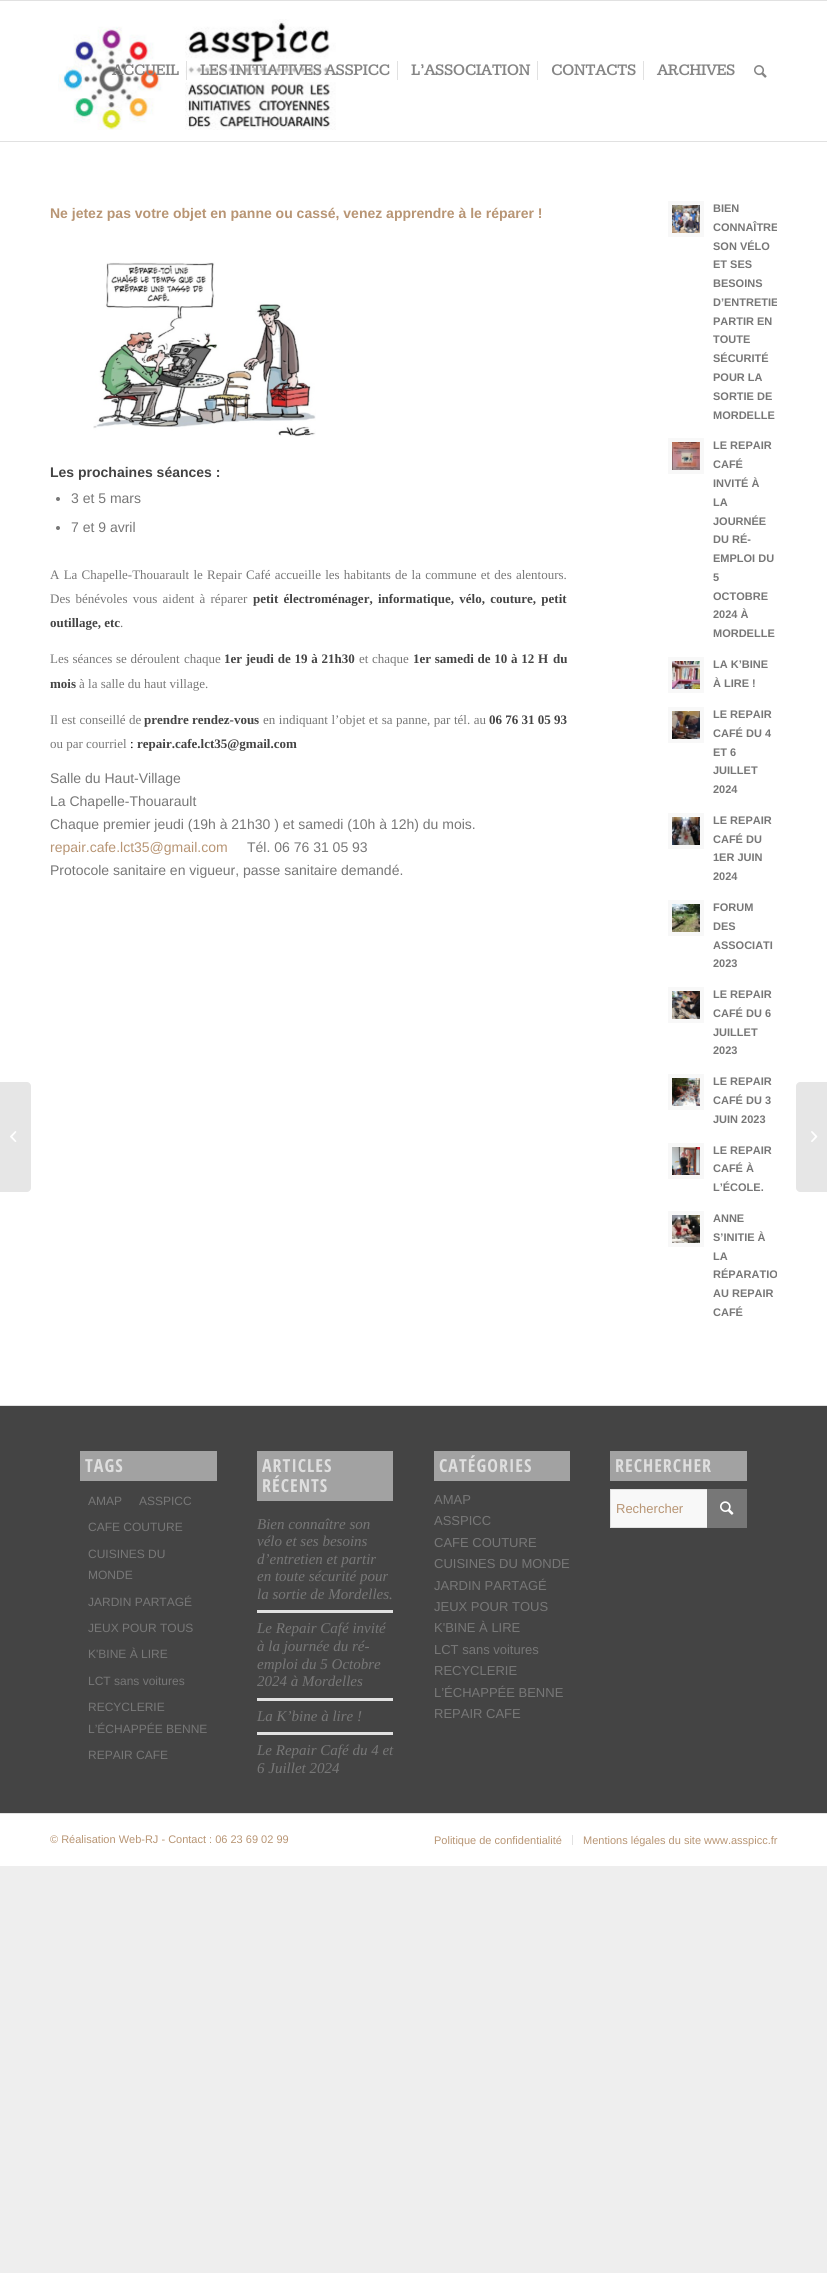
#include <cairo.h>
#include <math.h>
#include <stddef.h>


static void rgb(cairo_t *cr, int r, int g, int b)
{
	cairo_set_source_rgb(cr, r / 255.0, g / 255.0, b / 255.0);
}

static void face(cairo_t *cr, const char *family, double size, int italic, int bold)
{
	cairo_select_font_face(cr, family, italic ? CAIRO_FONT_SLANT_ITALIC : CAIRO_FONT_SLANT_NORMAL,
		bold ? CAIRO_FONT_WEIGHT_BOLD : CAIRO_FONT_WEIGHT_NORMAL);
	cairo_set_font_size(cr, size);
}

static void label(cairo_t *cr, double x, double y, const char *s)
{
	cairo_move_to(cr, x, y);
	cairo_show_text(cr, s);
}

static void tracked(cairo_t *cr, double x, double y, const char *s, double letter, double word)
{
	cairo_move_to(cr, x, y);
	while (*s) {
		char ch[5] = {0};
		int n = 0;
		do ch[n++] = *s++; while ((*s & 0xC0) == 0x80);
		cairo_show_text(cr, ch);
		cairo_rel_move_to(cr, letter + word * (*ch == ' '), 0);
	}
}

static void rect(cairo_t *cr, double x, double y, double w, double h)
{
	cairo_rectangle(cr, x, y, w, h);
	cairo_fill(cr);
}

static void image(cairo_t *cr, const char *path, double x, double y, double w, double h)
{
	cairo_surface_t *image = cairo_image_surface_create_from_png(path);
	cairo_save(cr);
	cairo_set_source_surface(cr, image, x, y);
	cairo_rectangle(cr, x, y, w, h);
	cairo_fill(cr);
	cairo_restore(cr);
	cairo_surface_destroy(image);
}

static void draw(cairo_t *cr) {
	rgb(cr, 238, 238, 238);
	cairo_paint(cr);
	rgb(cr, 225, 225, 225);
	rect(cr, 0, 0, 827, 1);
	rgb(cr, 255, 255, 255);
	rect(cr, 0, 1, 827, 1404);
	rgb(cr, 225, 225, 225);
	rect(cr, 0, 141, 827, 1);
	image(cr, "image0.png", 58, 19, 278, 111);
	face(cr, "Kameron", 16, 0, 1);
	rgb(cr, 133, 133, 133);
	label(cr, 112, 75, "ACCUEIL");
	label(cr, 200, 75, "LES INITIATIVES ASSPICC");
	rgb(cr, 225, 225, 225);
	rect(cr, 186, 61, 1, 19);
	rgb(cr, 133, 133, 133);
	label(cr, 411, 75, "L’ASSOCIATION");
	rgb(cr, 225, 225, 225);
	rect(cr, 397, 61, 1, 19);
	rgb(cr, 133, 133, 133);
	label(cr, 551, 75, "CONTACTS");
	rgb(cr, 225, 225, 225);
	rect(cr, 537, 61, 1, 19);
	rgb(cr, 133, 133, 133);
	label(cr, 657, 75, "ARCHIVES");
	rgb(cr, 225, 225, 225);
	rect(cr, 643, 61, 1, 19);
	image(cr, "image1.png", 754, 65, 13, 13);
	rgb(cr, 230, 230, 230);
	cairo_new_path(cr);
	cairo_move_to(cr, 0, 1082);
	cairo_line_to(cr, 27, 1082);
	cairo_curve_to(cr, 29, 1082, 31, 1084, 31, 1086);
	cairo_line_to(cr, 31, 1188);
	cairo_curve_to(cr, 31, 1190, 29, 1192, 27, 1192);
	cairo_line_to(cr, 0, 1192);
	cairo_close_path(cr);
	cairo_fill(cr);
	image(cr, "image2.png", 10, 1131, 7, 11);
	face(cr, "Liberation Sans", 14, 0, 1);
	rgb(cr, 184, 149, 116);
	label(cr, 50, 218, "Ne jetez pas votre objet en panne ou cassé, venez apprendre à le réparer !");
	image(cr, "image3.png", 93, 262, 223, 175);
	rgb(cr, 68, 68, 68);
	label(cr, 50, 477, "Les prochaines séances :");
	rgb(cr, 119, 119, 119);
	cairo_new_path(cr);
	cairo_arc(cr, 58, 499, 2, 0, 2 * M_PI);
	cairo_fill(cr);
	face(cr, "Liberation Sans", 14, 0, 0);
	label(cr, 71, 503, "3 et 5 mars");
	cairo_new_path(cr);
	cairo_arc(cr, 58, 528, 2, 0, 2 * M_PI);
	cairo_fill(cr);
	label(cr, 71, 532, "7 et 9 avril");
	face(cr, "Liberation Serif", 13, 0, 0);
	tracked(cr, 50, 579, "A La Chapelle-Thouarault le Repair Café accueille les habitants de la commune et des alentours.", 0, 1);
	tracked(cr, 50, 603, "Des bénévoles vous aident à réparer", 0, 2);
	face(cr, "Liberation Serif", 13, 0, 1);
	rgb(cr, 68, 68, 68);
	tracked(cr, 253, 603, "petit électroménager, informatique, vélo, couture, petit", 0, 2);
	label(cr, 50, 627, "outillage, etc");
	face(cr, "Liberation Serif", 13, 0, 0);
	rgb(cr, 119, 119, 119);
	label(cr, 120, 627, ".");
	tracked(cr, 50, 663, "Les séances se déroulent", 0, 0.5);
	label(cr, 184, 663, "chaque");
	face(cr, "Liberation Serif", 13, 0, 1);
	rgb(cr, 68, 68, 68);
	tracked(cr, 224, 663, "1er jeudi de 19 à 21h30", 0, 0.5);
	face(cr, "Liberation Serif", 13, 0, 0);
	rgb(cr, 119, 119, 119);
	label(cr, 359, 663, "et");
	label(cr, 372, 663, "chaque");
	face(cr, "Liberation Serif", 13, 0, 1);
	rgb(cr, 68, 68, 68);
	tracked(cr, 413, 663, "1er samedi de 10 à 12 H", 0, 0.5);
	label(cr, 553, 663, "du");
	label(cr, 50, 688, "mois");
	face(cr, "Liberation Serif", 13, 0, 0);
	rgb(cr, 119, 119, 119);
	label(cr, 79, 688, "à la salle du haut village.");
	tracked(cr, 50, 724, "Il est conseillé de", 0, 0.25);
	face(cr, "Liberation Serif", 13, 0, 1);
	rgb(cr, 68, 68, 68);
	label(cr, 144, 724, "prendre rendez-vous");
	face(cr, "Liberation Serif", 13, 0, 0);
	rgb(cr, 119, 119, 119);
	tracked(cr, 263, 724, "en indiquant l’objet et sa panne, par tél. au", 0, 0.25);
	face(cr, "Liberation Serif", 13, 0, 1);
	rgb(cr, 68, 68, 68);
	label(cr, 489, 724, "06 76 31 05 93");
	face(cr, "Liberation Serif", 13, 0, 0);
	rgb(cr, 119, 119, 119);
	label(cr, 50, 748, "ou par courriel");
	rgb(cr, 0, 0, 0);
	label(cr, 130, 748, ":");
	face(cr, "Liberation Serif", 13, 0, 1);
	rgb(cr, 68, 68, 68);
	label(cr, 137, 748, "repair.cafe.lct35@gmail.com");
	face(cr, "Liberation Sans", 14, 0, 0);
	rgb(cr, 119, 119, 119);
	label(cr, 50, 783, "Salle du Haut-Village");
	label(cr, 50, 806, "La Chapelle-Thouarault");
	label(cr, 50, 829, "Chaque premier jeudi (19h à 21h30 ) et samedi (10h à 12h) du mois.");
	rgb(cr, 184, 149, 116);
	label(cr, 50, 852, "repair.cafe.lct35@gmail.com");
	rgb(cr, 119, 119, 119);
	label(cr, 247, 852, "Tél. 06 76 31 05 93");
	label(cr, 50, 875, "Protocole sanitaire en vigueur, passe sanitaire demandé.");
	rgb(cr, 248, 248, 248);
	rect(cr, 668, 201, 36, 36);
	image(cr, "image4.png", 672, 205, 28, 28);
	face(cr, "Liberation Sans", 11, 0, 1);
	rgb(cr, 119, 119, 119);
	label(cr, 713, 212, "BIEN");
	cairo_save(cr);
	cairo_rectangle(cr, 713, 199, 64, 225);
	cairo_clip(cr);
	label(cr, 713, 231, "CONNAÎTRE");
	cairo_restore(cr);
	label(cr, 713, 250, "SON VÉLO");
	label(cr, 713, 268, "ET SES");
	label(cr, 713, 287, "BESOINS");
	cairo_save(cr);
	cairo_rectangle(cr, 713, 199, 64, 225);
	cairo_clip(cr);
	label(cr, 713, 306, "D’ENTRETIE");
	cairo_restore(cr);
	label(cr, 713, 325, "PARTIR EN");
	label(cr, 713, 343, "TOUTE");
	label(cr, 713, 362, "SÉCURITÉ");
	label(cr, 713, 381, "POUR LA");
	label(cr, 713, 400, "SORTIE DE");
	label(cr, 713, 419, "MORDELLE");
	rgb(cr, 248, 248, 248);
	rect(cr, 668, 438, 36, 36);
	image(cr, "image5.png", 672, 442, 28, 28);
	rgb(cr, 119, 119, 119);
	label(cr, 713, 449, "LE REPAIR");
	label(cr, 713, 468, "CAFÉ");
	label(cr, 713, 487, "INVITÉ À");
	label(cr, 713, 506, "LA");
	label(cr, 713, 525, "JOURNÉE");
	label(cr, 713, 543, "DU RÉ-");
	label(cr, 713, 562, "EMPLOI DU");
	label(cr, 713, 581, "5");
	label(cr, 713, 600, "OCTOBRE");
	label(cr, 713, 618, "2024 À");
	label(cr, 713, 637, "MORDELLE");
	rgb(cr, 248, 248, 248);
	rect(cr, 668, 657, 36, 36);
	image(cr, "image6.png", 672, 661, 28, 28);
	rgb(cr, 119, 119, 119);
	label(cr, 713, 668, "LA K’BINE");
	label(cr, 713, 687, "À LIRE !");
	rgb(cr, 248, 248, 248);
	rect(cr, 668, 707, 36, 36);
	image(cr, "image7.png", 672, 711, 28, 28);
	rgb(cr, 119, 119, 119);
	label(cr, 713, 718, "LE REPAIR");
	label(cr, 713, 737, "CAFÉ DU 4");
	label(cr, 713, 756, "ET 6");
	label(cr, 713, 774, "JUILLET");
	label(cr, 713, 793, "2024");
	rgb(cr, 248, 248, 248);
	rect(cr, 668, 813, 36, 36);
	image(cr, "image8.png", 672, 817, 28, 28);
	rgb(cr, 119, 119, 119);
	label(cr, 713, 824, "LE REPAIR");
	label(cr, 713, 843, "CAFÉ DU");
	label(cr, 713, 861, "1ER JUIN");
	label(cr, 713, 880, "2024");
	rgb(cr, 248, 248, 248);
	rect(cr, 668, 900, 36, 36);
	image(cr, "image9.png", 672, 904, 28, 28);
	rgb(cr, 119, 119, 119);
	label(cr, 713, 911, "FORUM");
	label(cr, 713, 930, "DES");
	label(cr, 713, 949, "ASSOCIATI");
	label(cr, 713, 967, "2023");
	rgb(cr, 248, 248, 248);
	rect(cr, 668, 987, 36, 36);
	image(cr, "image10.png", 672, 991, 28, 28);
	rgb(cr, 119, 119, 119);
	label(cr, 713, 998, "LE REPAIR");
	label(cr, 713, 1017, "CAFÉ DU 6");
	label(cr, 713, 1036, "JUILLET");
	label(cr, 713, 1054, "2023");
	rgb(cr, 248, 248, 248);
	rect(cr, 668, 1074, 36, 36);
	image(cr, "image11.png", 672, 1078, 28, 28);
	rgb(cr, 119, 119, 119);
	label(cr, 713, 1085, "LE REPAIR");
	label(cr, 713, 1104, "CAFÉ DU 3");
	label(cr, 713, 1123, "JUIN 2023");
	rgb(cr, 248, 248, 248);
	rect(cr, 668, 1143, 36, 36);
	image(cr, "image12.png", 672, 1147, 28, 28);
	rgb(cr, 119, 119, 119);
	label(cr, 713, 1154, "LE REPAIR");
	label(cr, 713, 1172, "CAFÉ À");
	label(cr, 713, 1191, "L’ÉCOLE.");
	rgb(cr, 248, 248, 248);
	rect(cr, 668, 1211, 36, 36);
	image(cr, "image13.png", 672, 1215, 28, 28);
	rgb(cr, 119, 119, 119);
	label(cr, 713, 1222, "ANNE");
	label(cr, 713, 1241, "S’INITIE À");
	label(cr, 713, 1260, "LA");
	cairo_save(cr);
	cairo_rectangle(cr, 713, 1209, 64, 113);
	cairo_clip(cr);
	label(cr, 713, 1278, "RÉPARATIO");
	cairo_restore(cr);
	label(cr, 713, 1297, "AU REPAIR");
	label(cr, 713, 1316, "CAFÉ");
	rgb(cr, 68, 68, 68);
	rect(cr, 0, 1406, 827, 407);
	rgb(cr, 225, 225, 225);
	rect(cr, 0, 1405, 827, 1);
	rgb(cr, 162, 162, 162);
	rect(cr, 80, 1451, 137, 30);
	face(cr, "Open Sans Condensed", 18, 0, 1);
	rgb(cr, 222, 222, 222);
	tracked(cr, 85, 1472, "TAGS", 1, 0);
	face(cr, "Liberation Sans", 12, 0, 0);
	rgb(cr, 119, 119, 119);
	label(cr, 88, 1505, "AMAP");
	label(cr, 139, 1505, "ASSPICC");
	label(cr, 88, 1531, "CAFE COUTURE");
	label(cr, 88, 1558, "CUISINES DU");
	label(cr, 88, 1579, "MONDE");
	label(cr, 88, 1606, "JARDIN PARTAGÉ");
	label(cr, 88, 1632, "JEUX POUR TOUS");
	label(cr, 88, 1658, "K'BINE À LIRE");
	label(cr, 88, 1685, "LCT sans voitures");
	label(cr, 88, 1711, "RECYCLERIE");
	label(cr, 88, 1733, "L’ÉCHAPPÉE BENNE");
	label(cr, 88, 1759, "REPAIR CAFE");
	rgb(cr, 162, 162, 162);
	rect(cr, 257, 1451, 136, 50);
	face(cr, "Open Sans Condensed", 18, 0, 1);
	rgb(cr, 222, 222, 222);
	tracked(cr, 262, 1472, "ARTICLES", 1, 0);
	tracked(cr, 262, 1492, "RÉCENTS", 1, 0);
	face(cr, "Liberation Serif", 15, 1, 0);
	rgb(cr, 119, 119, 119);
	label(cr, 257, 1529, "Bien connaître son");
	label(cr, 257, 1546, "vélo et ses besoins");
	label(cr, 257, 1564, "d’entretien et partir");
	label(cr, 257, 1581, "en toute sécurité pour");
	label(cr, 257, 1599, "la sortie de Mordelles.");
	rgb(cr, 225, 225, 225);
	rect(cr, 257, 1610, 136, 3);
	rgb(cr, 119, 119, 119);
	label(cr, 257, 1633, "Le Repair Café invité");
	label(cr, 257, 1651, "à la journée du ré-");
	label(cr, 257, 1669, "emploi du 5 Octobre");
	label(cr, 257, 1686, "2024 à Mordelles");
	rgb(cr, 225, 225, 225);
	rect(cr, 257, 1698, 136, 3);
	rgb(cr, 119, 119, 119);
	label(cr, 257, 1721, "La K’bine à lire !");
	rgb(cr, 225, 225, 225);
	rect(cr, 257, 1732, 136, 3);
	rgb(cr, 119, 119, 119);
	label(cr, 257, 1755, "Le Repair Café du 4 et");
	label(cr, 257, 1773, "6 Juillet 2024");
	rgb(cr, 162, 162, 162);
	rect(cr, 434, 1451, 136, 30);
	face(cr, "Open Sans Condensed", 18, 0, 1);
	rgb(cr, 222, 222, 222);
	tracked(cr, 439, 1472, "CATÉGORIES", 1, 0);
	face(cr, "Liberation Sans", 13, 0, 0);
	rgb(cr, 119, 119, 119);
	label(cr, 434, 1504, "AMAP");
	label(cr, 434, 1525, "ASSPICC");
	label(cr, 434, 1547, "CAFE COUTURE");
	label(cr, 434, 1568, "CUISINES DU MONDE");
	label(cr, 434, 1590, "JARDIN PARTAGÉ");
	label(cr, 434, 1611, "JEUX POUR TOUS");
	label(cr, 434, 1632, "K'BINE À LIRE");
	label(cr, 434, 1654, "LCT sans voitures");
	label(cr, 434, 1675, "RECYCLERIE");
	label(cr, 434, 1697, "L’ÉCHAPPÉE BENNE");
	label(cr, 434, 1718, "REPAIR CAFE");
	rgb(cr, 162, 162, 162);
	rect(cr, 610, 1451, 137, 30);
	face(cr, "Open Sans Condensed", 18, 0, 1);
	rgb(cr, 222, 222, 222);
	tracked(cr, 615, 1472, "RECHERCHER", 1, 0);
	rgb(cr, 248, 248, 248);
	rect(cr, 611, 1490, 96, 37);
	cairo_rectangle(cr, 610.5, 1489.5, 136, 38);
	rgb(cr, 225, 225, 225);
	cairo_set_line_width(cr, 1);
	cairo_stroke(cr);
	face(cr, "Liberation Sans", 13, 0, 0);
	rgb(cr, 184, 149, 116);
	label(cr, 616, 1513, "Rechercher");
	rgb(cr, 119, 119, 119);
	rect(cr, 707, 1489, 40, 39);
	image(cr, "image14.png", 720, 1501, 14, 14);
	rgb(cr, 255, 255, 255);
	rect(cr, 0, 1814, 827, 52);
	rgb(cr, 225, 225, 225);
	rect(cr, 0, 1813, 827, 1);
	face(cr, "Liberation Sans", 11, 0, 0);
	rgb(cr, 184, 149, 116);
	label(cr, 50, 1843, "© Réalisation Web-RJ - Contact : 06 23 69 02 99");
	label(cr, 434, 1844, "Politique de confidentialité");
	rgb(cr, 225, 225, 225);
	rect(cr, 572, 1835, 1, 10);
	rgb(cr, 184, 149, 116);
	label(cr, 583, 1844, "Mentions légales du site www.asspicc.fr");
	rgb(cr, 230, 230, 230);
	cairo_new_path(cr);
	cairo_move_to(cr, 800, 1082);
	cairo_line_to(cr, 827, 1082);
	cairo_line_to(cr, 827, 1192);
	cairo_line_to(cr, 800, 1192);
	cairo_curve_to(cr, 798, 1192, 796, 1190, 796, 1188);
	cairo_line_to(cr, 796, 1086);
	cairo_curve_to(cr, 796, 1084, 798, 1082, 800, 1082);
	cairo_close_path(cr);
	cairo_fill(cr);
	image(cr, "image15.png", 811, 1131, 7, 11);
}

int main(void) {
	cairo_surface_t *surface = cairo_image_surface_create(CAIRO_FORMAT_RGB24, 827, 2273);
	cairo_t *cr = cairo_create(surface);
	cairo_font_options_t *options = cairo_font_options_create();
	cairo_font_options_set_hint_metrics(options, CAIRO_HINT_METRICS_OFF);
	cairo_font_options_set_hint_style(options, CAIRO_HINT_STYLE_NONE);
	cairo_set_font_options(cr, options);
	cairo_set_miter_limit(cr, 4);
	draw(cr);
	cairo_surface_write_to_png(surface, "render.png");
	cairo_font_options_destroy(options);
	cairo_destroy(cr);
	cairo_surface_destroy(surface);
	return 0;
}
